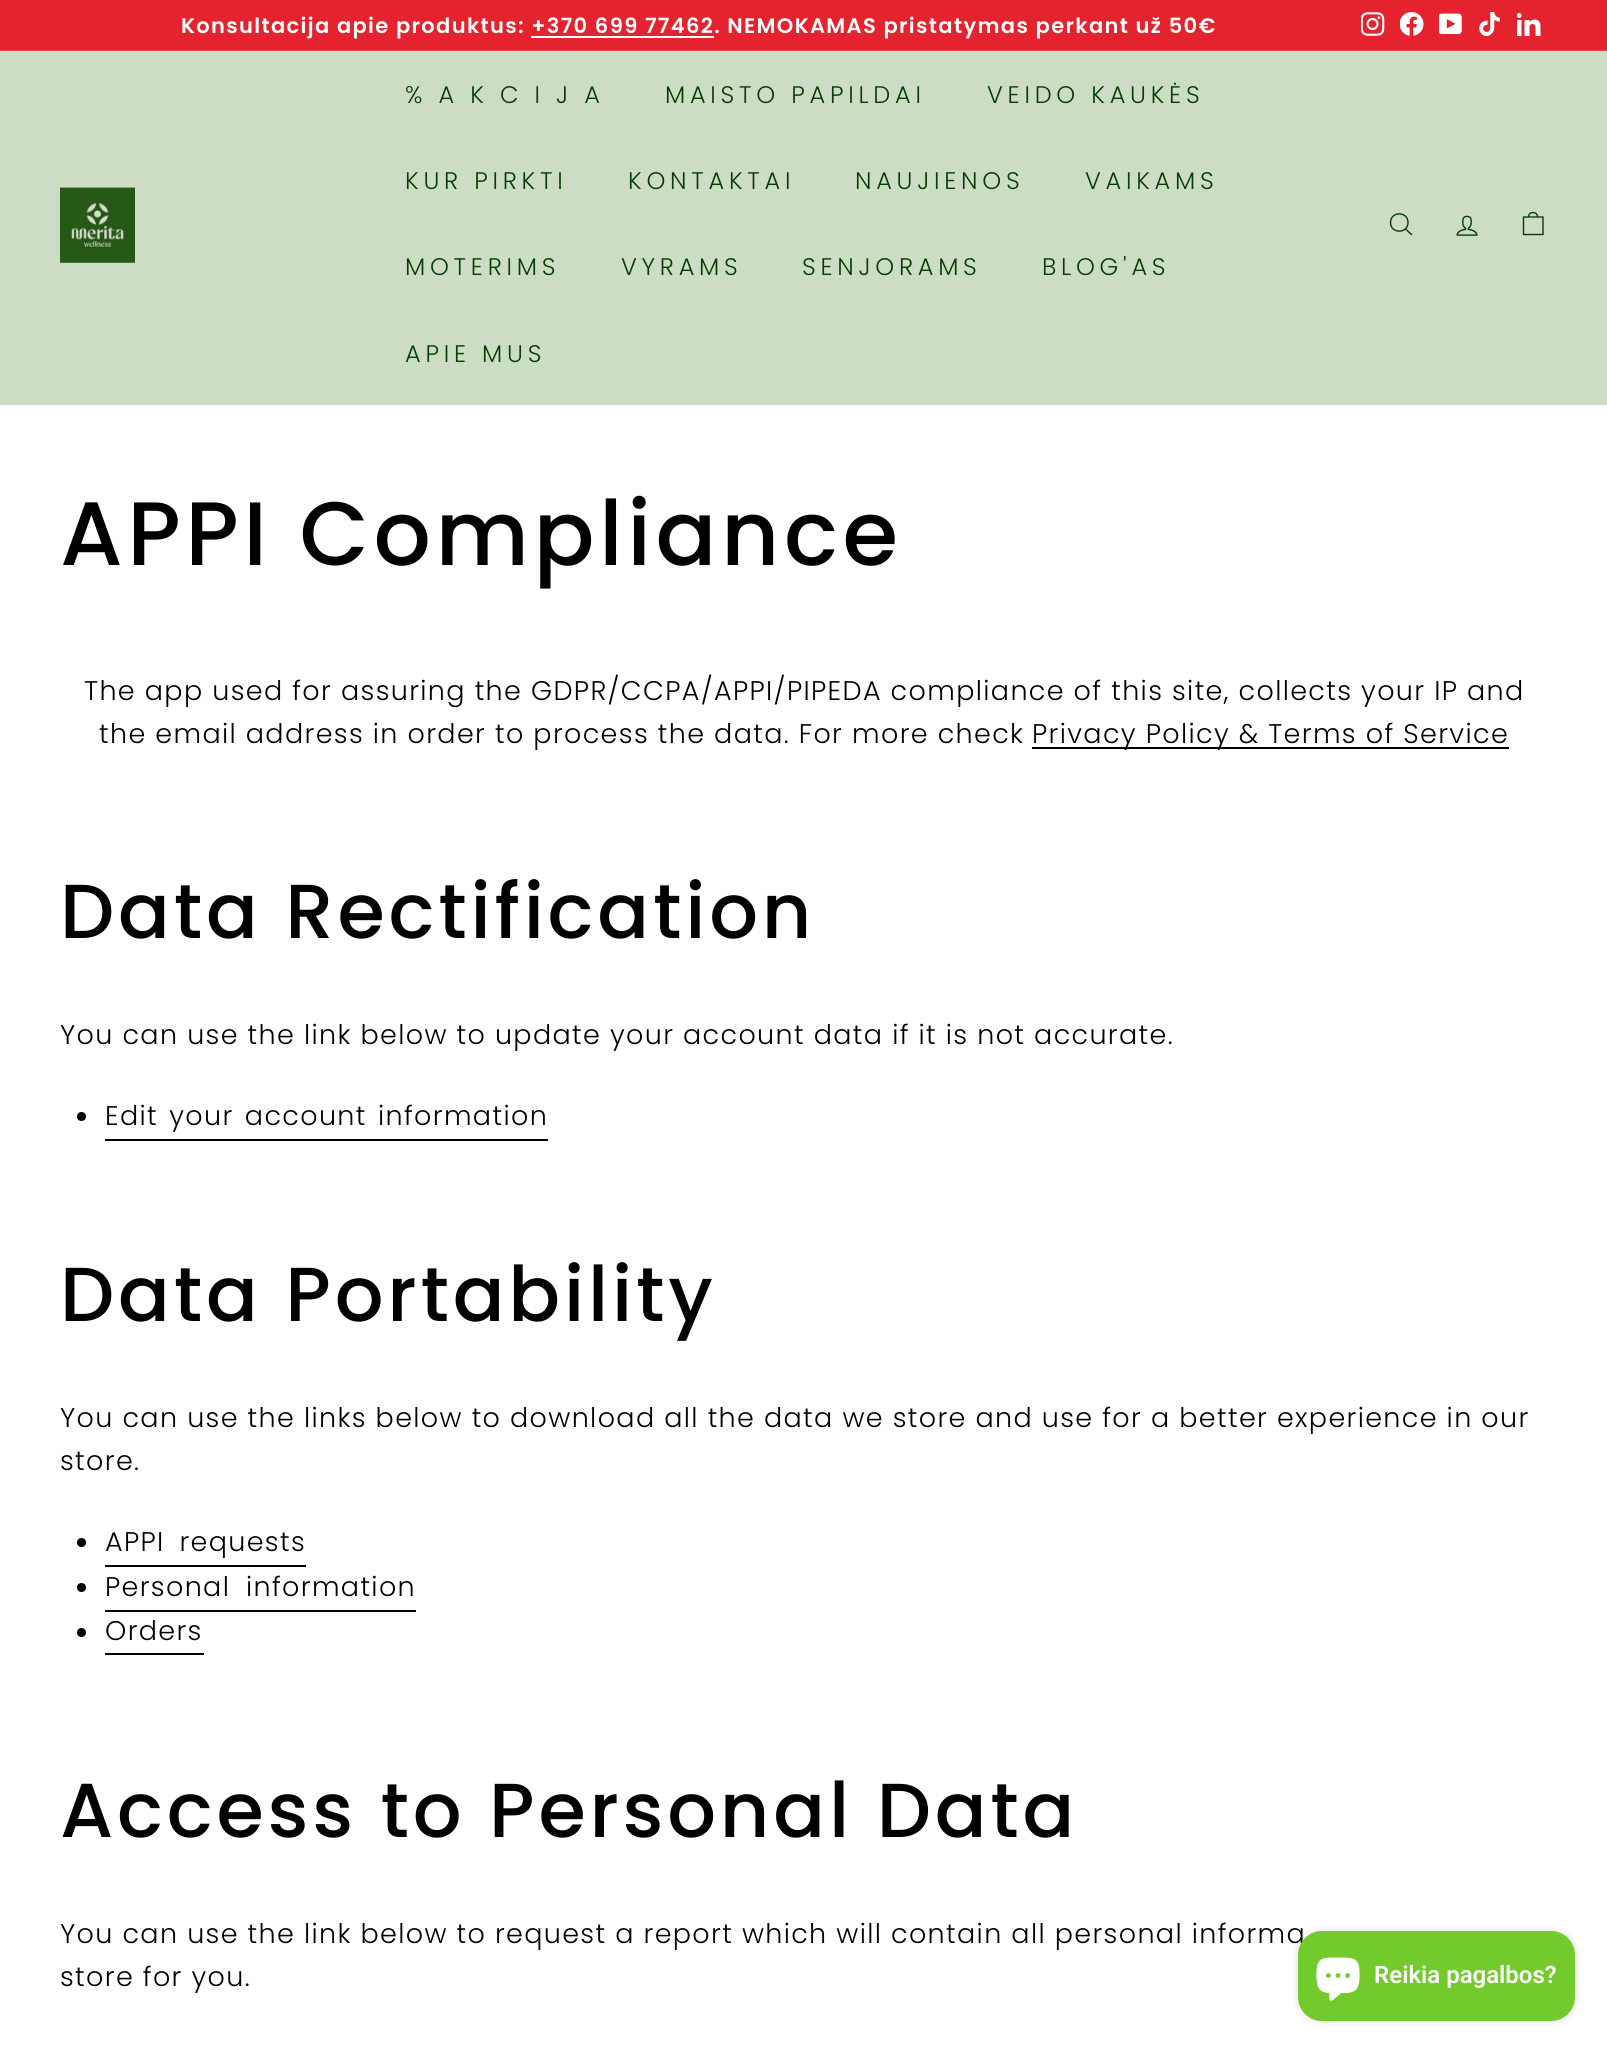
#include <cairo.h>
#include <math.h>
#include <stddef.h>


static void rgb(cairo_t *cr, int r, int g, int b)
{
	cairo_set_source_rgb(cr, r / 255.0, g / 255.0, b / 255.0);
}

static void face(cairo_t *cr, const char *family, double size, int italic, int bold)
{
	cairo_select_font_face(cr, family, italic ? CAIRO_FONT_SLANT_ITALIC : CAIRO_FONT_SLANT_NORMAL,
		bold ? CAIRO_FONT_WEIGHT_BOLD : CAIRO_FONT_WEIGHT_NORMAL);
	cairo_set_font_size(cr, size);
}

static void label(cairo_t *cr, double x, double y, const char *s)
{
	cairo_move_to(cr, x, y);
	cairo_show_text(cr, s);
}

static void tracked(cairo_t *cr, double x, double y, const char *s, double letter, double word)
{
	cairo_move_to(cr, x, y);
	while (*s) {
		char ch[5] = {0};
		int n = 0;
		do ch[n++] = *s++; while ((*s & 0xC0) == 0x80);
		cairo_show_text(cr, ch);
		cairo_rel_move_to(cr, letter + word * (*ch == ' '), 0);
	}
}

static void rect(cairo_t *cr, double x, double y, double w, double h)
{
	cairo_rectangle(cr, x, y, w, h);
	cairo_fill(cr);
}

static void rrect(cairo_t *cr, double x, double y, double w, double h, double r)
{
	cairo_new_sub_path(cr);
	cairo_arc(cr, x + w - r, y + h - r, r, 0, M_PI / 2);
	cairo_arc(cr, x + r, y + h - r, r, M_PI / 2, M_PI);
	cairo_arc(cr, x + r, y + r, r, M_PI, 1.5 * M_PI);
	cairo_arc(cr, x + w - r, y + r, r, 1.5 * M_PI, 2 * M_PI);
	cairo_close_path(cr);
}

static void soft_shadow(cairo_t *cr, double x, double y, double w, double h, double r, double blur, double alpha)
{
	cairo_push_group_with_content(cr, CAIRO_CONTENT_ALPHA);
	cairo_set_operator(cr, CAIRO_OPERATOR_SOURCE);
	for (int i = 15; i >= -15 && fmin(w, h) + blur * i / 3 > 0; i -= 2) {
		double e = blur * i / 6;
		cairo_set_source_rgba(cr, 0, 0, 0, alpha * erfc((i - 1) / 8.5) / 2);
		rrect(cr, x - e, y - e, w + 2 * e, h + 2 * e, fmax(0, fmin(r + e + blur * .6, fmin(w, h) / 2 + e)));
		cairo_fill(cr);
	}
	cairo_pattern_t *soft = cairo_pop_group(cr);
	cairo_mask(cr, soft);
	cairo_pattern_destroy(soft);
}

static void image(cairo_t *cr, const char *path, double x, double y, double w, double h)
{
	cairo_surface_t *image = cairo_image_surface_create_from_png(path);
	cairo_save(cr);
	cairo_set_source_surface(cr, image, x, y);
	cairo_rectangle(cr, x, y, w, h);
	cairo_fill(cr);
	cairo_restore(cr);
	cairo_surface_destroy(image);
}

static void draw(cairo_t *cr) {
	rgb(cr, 255, 255, 255);
	cairo_paint(cr);
	rgb(cr, 229, 35, 46);
	rect(cr, 0, 0, 1607, 50);
	rgb(cr, 233, 68, 77);
	rect(cr, 0, 50, 1607, 1);
	face(cr, "Poppins SemiBold", 21, 0, 0);
	rgb(cr, 255, 255, 255);
	tracked(cr, 181, 33, "Konsultacija apie produktus: +370 699 77462. NEMOKAMAS pristatymas perkant už 50€", 1.35, 0);
	rect(cr, 531, 36, 183, 2);
	image(cr, "image0.png", 1361, 12, 24, 24);
	image(cr, "image1.png", 1400, 12, 24, 24);
	image(cr, "image2.png", 1439, 13, 23, 21);
	image(cr, "image3.png", 1479, 12, 21, 24);
	image(cr, "image4.png", 1517, 13, 24, 23);
	rgb(cr, 205, 220, 196);
	rect(cr, 0, 52, 1607, 353);
	rgb(cr, 213, 225, 205);
	rect(cr, 0, 51, 1607, 1);
	image(cr, "image5.png", 60, 187, 75, 76);
	face(cr, "Poppins Light", 24, 0, 0);
	rgb(cr, 6, 61, 2);
	tracked(cr, 405, 103, "% A K C I J A", 4.75, 0);
	tracked(cr, 665, 103, "MAISTO PAPILDAI", 4.75, 0);
	tracked(cr, 987, 103, "VEIDO KAUKĖS", 4.75, 0);
	tracked(cr, 405, 189, "KUR PIRKTI", 4.75, 0);
	tracked(cr, 628, 189, "KONTAKTAI", 4.75, 0);
	tracked(cr, 855, 189, "NAUJIENOS", 4.75, 0);
	tracked(cr, 1085, 189, "VAIKAMS", 4.75, 0);
	tracked(cr, 405, 275, "MOTERIMS", 4.75, 0);
	tracked(cr, 621, 275, "VYRAMS", 4.75, 0);
	tracked(cr, 802, 275, "SENJORAMS", 4.75, 0);
	tracked(cr, 1042, 275, "BLOG'AS", 4.75, 0);
	tracked(cr, 405, 362, "APIE MUS", 4.75, 0);
	cairo_new_path(cr);
	cairo_move_to(cr, 1408, 222.5);
	cairo_curve_to(cr, 1408, 234, 1390.5, 234, 1390.5, 222.5);
	cairo_curve_to(cr, 1390.5, 211, 1408, 211, 1408, 222.5);
	cairo_close_path(cr);
	cairo_move_to(cr, 1411.5, 234.5);
	cairo_line_to(cr, 1405.5, 229);
	cairo_set_line_width(cr, 1.4);
	cairo_set_line_cap(cr, CAIRO_LINE_CAP_ROUND);
	cairo_set_line_join(cr, CAIRO_LINE_JOIN_ROUND);
	cairo_stroke(cr);
	image(cr, "image6.png", 1456, 215, 22, 21);
	cairo_new_path(cr);
	cairo_move_to(cr, 1528.5, 217);
	cairo_curve_to(cr, 1528.5, 211, 1537.5, 211, 1537.5, 217);
	cairo_move_to(cr, 1523.5, 217);
	cairo_line_to(cr, 1543, 217);
	cairo_line_to(cr, 1543, 234.5);
	cairo_line_to(cr, 1523.5, 234.5);
	cairo_close_path(cr);
	cairo_stroke(cr);
	face(cr, "Poppins Medium", 90, 0, 0);
	rgb(cr, 0, 0, 0);
	tracked(cr, 60, 565, "APPI Compliance", 4.5, 0);
	face(cr, "Poppins Light", 27, 0, 0);
	tracked(cr, 84, 700, "The app used for assuring the GDPR/CCPA/APPI/PIPEDA compliance of this site, collects your IP and", 1.35, 0);
	tracked(cr, 99, 743, "the email address in order to process the data. For more check", 1.35, 0);
	rect(cr, 1032, 747, 477, 2);
	tracked(cr, 1032, 743, "Privacy Policy & Terms of Service", 1.35, 0);
	face(cr, "Poppins Medium", 76.5, 0, 0);
	tracked(cr, 60, 938, "Data Rectification", 3.8, 0);
	face(cr, "Poppins Light", 27, 0, 0);
	tracked(cr, 60, 1044, "You can use the link below to update your account data if it is not accurate.", 1.35, 0);
	cairo_new_path(cr);
	cairo_arc(cr, 81.5, 1116.5, 4.5, 0, 2 * M_PI);
	cairo_fill(cr);
	rect(cr, 105, 1139, 443, 2);
	tracked(cr, 105, 1125, "Edit your account information", 1.35, 2.5);
	face(cr, "Poppins Medium", 76.5, 0, 0);
	tracked(cr, 60, 1321, "Data Portability", 3.8, 0);
	face(cr, "Poppins Light", 27, 0, 0);
	tracked(cr, 60, 1427, "You can use the links below to download all the data we store and use for a better experience in our", 1.35, 0);
	tracked(cr, 60, 1470, "store.", 1.35, 0);
	cairo_new_path(cr);
	cairo_arc(cr, 81.5, 1542.5, 4.5, 0, 2 * M_PI);
	cairo_fill(cr);
	rect(cr, 105, 1565, 201, 2);
	tracked(cr, 105, 1551, "APPI requests", 1.35, 6);
	cairo_new_path(cr);
	cairo_arc(cr, 81.5, 1587.5, 4.5, 0, 2 * M_PI);
	cairo_fill(cr);
	rect(cr, 105, 1610, 311, 2);
	tracked(cr, 105, 1596, "Personal information", 1.35, 7);
	cairo_new_path(cr);
	cairo_arc(cr, 81.5, 1632.5, 4.5, 0, 2 * M_PI);
	cairo_fill(cr);
	rect(cr, 105, 1653, 99, 2);
	tracked(cr, 105, 1640, "Orders", 1.35, 0);
	face(cr, "Poppins Medium", 76.5, 0, 0);
	tracked(cr, 60, 1837, "Access to Personal Data", 3.8, 0);
	face(cr, "Poppins Light", 27, 0, 0);
	tracked(cr, 60, 1943, "You can use the link below to request a report which will contain all personal informa", 1.35, 0);
	tracked(cr, 60, 1986, "store for you.", 1.35, 0);
	rgb(cr, 0, 0, 0);
	soft_shadow(cr, 1298, 1931, 277, 90, 24, 4, 0.15);
	rgb(cr, 115, 202, 45);
	rrect(cr, 1298, 1931, 277, 90, 24);
	cairo_fill(cr);
	image(cr, "image7.png", 1316, 1957, 44, 44);
	face(cr, "Roboto SemiBold", 24, 0, 0);
	rgb(cr, 255, 255, 255);
	label(cr, 1374, 1983, "Reikia pagalbos?");
}

int main(void) {
	cairo_surface_t *surface = cairo_image_surface_create(CAIRO_FORMAT_RGB24, 1607, 2051);
	cairo_t *cr = cairo_create(surface);
	cairo_font_options_t *options = cairo_font_options_create();
	cairo_font_options_set_hint_metrics(options, CAIRO_HINT_METRICS_OFF);
	cairo_font_options_set_hint_style(options, CAIRO_HINT_STYLE_NONE);
	cairo_set_font_options(cr, options);
	cairo_set_miter_limit(cr, 4);
	draw(cr);
	cairo_surface_write_to_png(surface, "render.png");
	cairo_font_options_destroy(options);
	cairo_destroy(cr);
	cairo_surface_destroy(surface);
	return 0;
}
